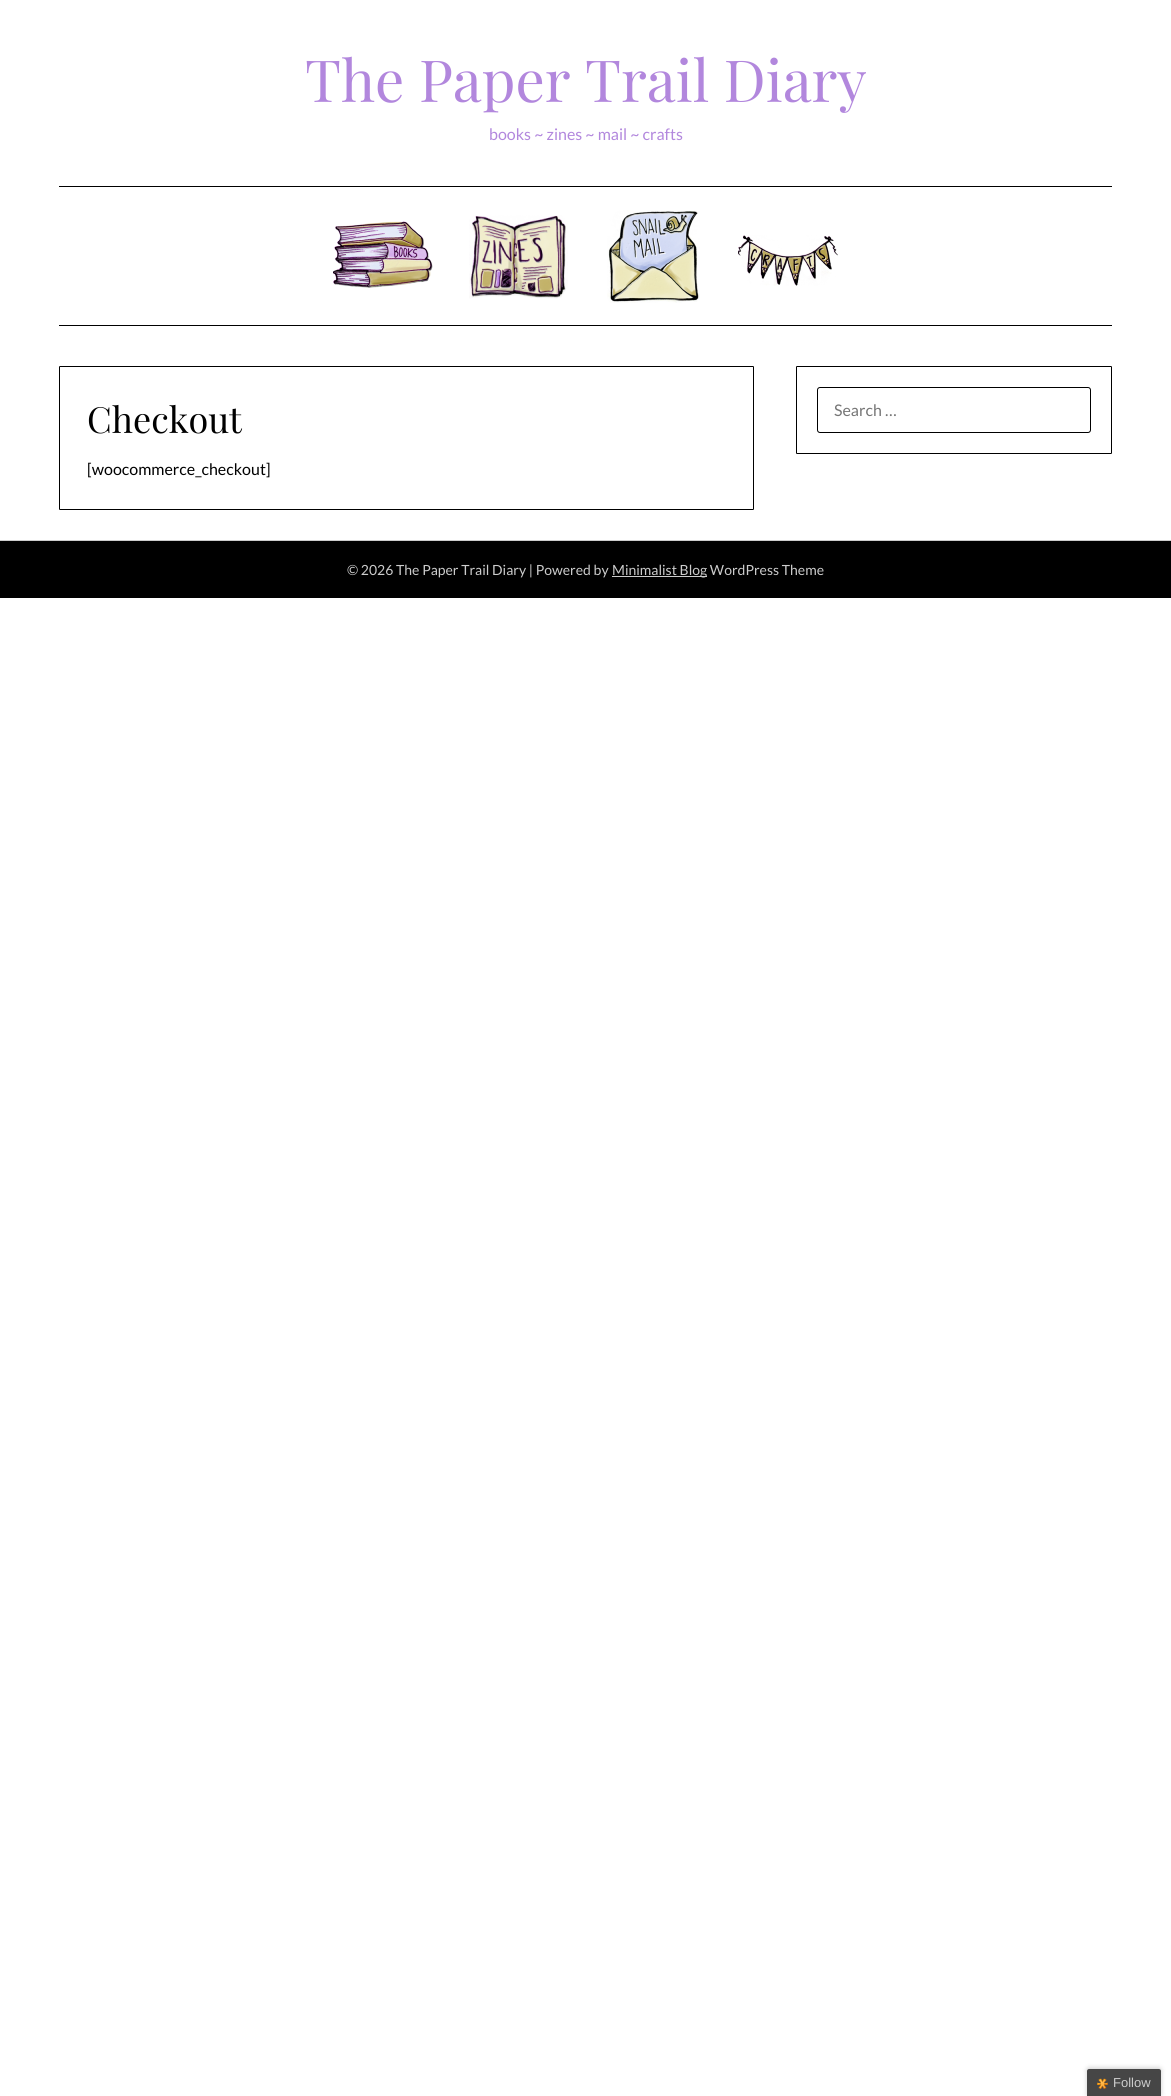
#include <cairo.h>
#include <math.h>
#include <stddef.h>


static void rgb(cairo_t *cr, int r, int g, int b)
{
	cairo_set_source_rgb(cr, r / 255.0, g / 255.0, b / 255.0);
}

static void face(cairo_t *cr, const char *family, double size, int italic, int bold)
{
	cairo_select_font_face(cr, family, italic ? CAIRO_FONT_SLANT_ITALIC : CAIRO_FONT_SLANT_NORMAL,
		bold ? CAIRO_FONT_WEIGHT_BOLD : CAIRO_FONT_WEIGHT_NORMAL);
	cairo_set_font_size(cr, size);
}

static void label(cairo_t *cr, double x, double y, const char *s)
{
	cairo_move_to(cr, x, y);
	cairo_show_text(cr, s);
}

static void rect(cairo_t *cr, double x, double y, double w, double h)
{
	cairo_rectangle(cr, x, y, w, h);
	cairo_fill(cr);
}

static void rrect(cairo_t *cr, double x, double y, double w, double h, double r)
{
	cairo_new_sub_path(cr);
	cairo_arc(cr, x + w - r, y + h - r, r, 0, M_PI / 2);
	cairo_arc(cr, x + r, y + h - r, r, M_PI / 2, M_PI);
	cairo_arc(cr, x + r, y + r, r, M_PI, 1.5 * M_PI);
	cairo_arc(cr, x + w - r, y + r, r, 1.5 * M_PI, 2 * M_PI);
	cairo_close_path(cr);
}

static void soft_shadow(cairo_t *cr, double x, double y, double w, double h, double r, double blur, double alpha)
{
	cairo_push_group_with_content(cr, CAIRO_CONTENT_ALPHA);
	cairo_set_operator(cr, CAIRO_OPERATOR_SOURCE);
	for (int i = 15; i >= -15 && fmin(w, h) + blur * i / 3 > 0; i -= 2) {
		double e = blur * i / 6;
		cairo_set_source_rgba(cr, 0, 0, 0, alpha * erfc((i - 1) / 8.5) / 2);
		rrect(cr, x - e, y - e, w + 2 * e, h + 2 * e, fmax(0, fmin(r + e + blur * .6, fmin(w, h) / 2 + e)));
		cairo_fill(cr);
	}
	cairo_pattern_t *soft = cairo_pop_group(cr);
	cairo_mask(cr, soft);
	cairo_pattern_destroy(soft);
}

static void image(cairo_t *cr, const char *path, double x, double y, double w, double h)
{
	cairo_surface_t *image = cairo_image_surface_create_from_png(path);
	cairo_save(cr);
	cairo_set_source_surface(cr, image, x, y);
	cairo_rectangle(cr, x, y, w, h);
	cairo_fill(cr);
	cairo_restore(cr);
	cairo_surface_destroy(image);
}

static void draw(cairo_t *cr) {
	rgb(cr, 255, 255, 255);
	cairo_paint(cr);
	face(cr, "Playfair Display", 58, 0, 0);
	rgb(cr, 178, 135, 221);
	label(cr, 305, 102, "The Paper Trail Diary");
	face(cr, "Lato", 16, 0, 0);
	label(cr, 489, 140, "books ~ zines ~ mail ~ crafts");
	rgb(cr, 0, 0, 0);
	rect(cr, 59, 186, 1053, 1);
	rect(cr, 59, 325, 1053, 1);
	image(cr, "image0.png", 333, 221, 100, 67);
	image(cr, "image1.png", 469, 215, 99, 84);
	image(cr, "image2.png", 607, 210, 93, 93);
	image(cr, "image3.png", 738, 235, 100, 51);
	rrect(cr, 59.5, 366.5, 694, 143, 0.5);
	cairo_set_line_width(cr, 1);
	cairo_stroke(cr);
	face(cr, "Playfair Display", 36, 0, 0);
	label(cr, 87, 433, "Checkout");
	face(cr, "Lato", 16, 0, 0);
	label(cr, 87, 475, "[woocommerce_checkout]");
	rrect(cr, 796.5, 366.5, 315, 87, 0.5);
	cairo_stroke(cr);
	rrect(cr, 817.5, 387.5, 273, 45, 2.5);
	cairo_stroke(cr);
	rgb(cr, 117, 117, 117);
	label(cr, 834, 416, "Search …");
	rgb(cr, 0, 0, 0);
	rect(cr, 0, 541, 1171, 57);
	rgb(cr, 204, 204, 204);
	rect(cr, 0, 540, 1171, 1);
	face(cr, "Lato", 14, 0, 0);
	label(cr, 347, 575, "© 2026 The Paper Trail Diary | Powered by");
	rect(cr, 612, 576, 95, 1);
	label(cr, 612, 575, "Minimalist Blog WordPress Theme");
	rgb(cr, 0, 0, 0);
	soft_shadow(cr, 1087, 2068, 74, 28, 2, 2.5, 0.2);
	rgb(cr, 70, 70, 70);
	cairo_new_path(cr);
	cairo_move_to(cr, 1089, 2069);
	cairo_line_to(cr, 1159, 2069);
	cairo_curve_to(cr, 1160, 2069, 1161, 2070, 1161, 2071);
	cairo_line_to(cr, 1161, 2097);
	cairo_line_to(cr, 1087, 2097);
	cairo_line_to(cr, 1087, 2071);
	cairo_curve_to(cr, 1087, 2070, 1088, 2069, 1089, 2069);
	cairo_close_path(cr);
	cairo_fill(cr);
	image(cr, "image4.png", 1097, 2078, 11, 11);
	face(cr, "Liberation Sans", 13, 0, 0);
	rgb(cr, 204, 204, 204);
	label(cr, 1113, 2087, "Follow");
}

int main(void) {
	cairo_surface_t *surface = cairo_image_surface_create(CAIRO_FORMAT_RGB24, 1171, 2096);
	cairo_t *cr = cairo_create(surface);
	cairo_font_options_t *options = cairo_font_options_create();
	cairo_font_options_set_hint_metrics(options, CAIRO_HINT_METRICS_OFF);
	cairo_font_options_set_hint_style(options, CAIRO_HINT_STYLE_NONE);
	cairo_set_font_options(cr, options);
	cairo_set_miter_limit(cr, 4);
	draw(cr);
	cairo_surface_write_to_png(surface, "render.png");
	cairo_font_options_destroy(options);
	cairo_destroy(cr);
	cairo_surface_destroy(surface);
	return 0;
}
